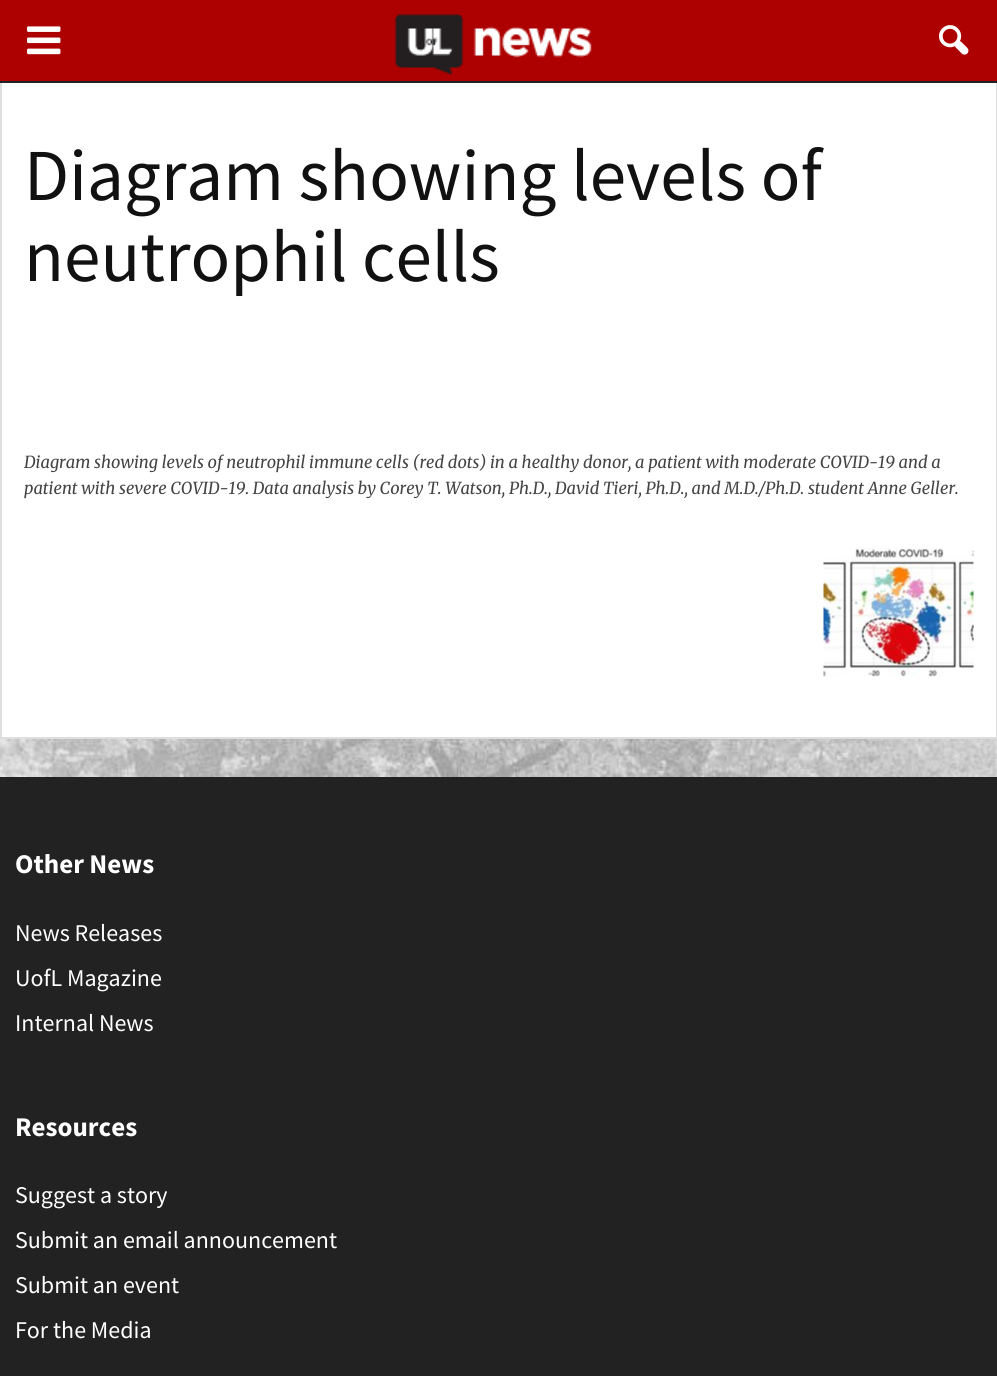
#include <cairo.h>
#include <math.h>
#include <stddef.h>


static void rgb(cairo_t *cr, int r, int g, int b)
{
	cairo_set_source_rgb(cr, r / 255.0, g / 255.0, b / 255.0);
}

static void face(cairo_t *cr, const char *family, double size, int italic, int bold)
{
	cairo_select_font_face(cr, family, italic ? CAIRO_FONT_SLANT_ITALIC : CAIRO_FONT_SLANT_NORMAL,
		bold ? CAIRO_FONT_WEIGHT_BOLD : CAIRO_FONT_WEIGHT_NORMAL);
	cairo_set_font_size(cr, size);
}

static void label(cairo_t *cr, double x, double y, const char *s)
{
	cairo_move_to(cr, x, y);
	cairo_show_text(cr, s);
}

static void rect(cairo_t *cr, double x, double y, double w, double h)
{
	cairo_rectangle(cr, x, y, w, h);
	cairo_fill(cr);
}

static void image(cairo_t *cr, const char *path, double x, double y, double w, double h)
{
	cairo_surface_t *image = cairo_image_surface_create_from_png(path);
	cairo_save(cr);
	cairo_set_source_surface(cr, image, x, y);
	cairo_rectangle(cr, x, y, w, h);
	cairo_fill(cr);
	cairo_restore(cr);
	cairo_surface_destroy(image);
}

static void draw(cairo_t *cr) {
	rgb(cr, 255, 255, 255);
	cairo_paint(cr);
	rgb(cr, 222, 222, 222);
	rect(cr, 996, 81, 1, 657);
	rect(cr, 0, 737, 997, 2);
	rect(cr, 0, 81, 2, 657);
	rgb(cr, 34, 34, 34);
	rect(cr, 0, 81, 997, 2);
	rgb(cr, 173, 0, 0);
	rect(cr, 0, 0, 997, 81);
	image(cr, "image0.png", 27, 26, 34, 29);
	image(cr, "image1.png", 394, 13, 198, 63);
	image(cr, "image2.png", 939, 25, 30, 30);
	image(cr, "image3.png", 0, 739, 997, 38);
	face(cr, "Source Sans Pro", 73.25, 0, 0);
	rgb(cr, 17, 17, 17);
	label(cr, 24, 200, "Diagram showing levels of");
	label(cr, 24, 281, "neutrophil cells");
	face(cr, "Merriweather", 16.5, 1, 0);
	rgb(cr, 68, 68, 68);
	label(cr, 24, 468, "Diagram showing levels of neutrophil immune cells (red dots) in a healthy donor, a patient with moderate COVID-19 and a");
	label(cr, 24, 494, "patient with severe COVID-19. Data analysis by Corey T. Watson, Ph.D., David Tieri, Ph.D., and M.D./Ph.D. student Anne Geller.");
	image(cr, "image4.png", 823, 547, 151, 130);
	rgb(cr, 34, 34, 34);
	rect(cr, 0, 777, 997, 599);
	face(cr, "Source Sans Pro", 27, 0, 1);
	rgb(cr, 255, 255, 255);
	label(cr, 15, 873, "Other News");
	face(cr, "Source Sans Pro", 24, 0, 0);
	label(cr, 15, 941, "News Releases");
	label(cr, 15, 986, "UofL Magazine");
	label(cr, 15, 1031, "Internal News");
	face(cr, "Source Sans Pro", 27, 0, 1);
	label(cr, 15, 1136, "Resources");
	face(cr, "Source Sans Pro", 24, 0, 0);
	label(cr, 15, 1203, "Suggest a story");
	label(cr, 15, 1248, "Submit an email announcement");
	label(cr, 15, 1293, "Submit an event");
	label(cr, 15, 1338, "For the Media");
}

int main(void) {
	cairo_surface_t *surface = cairo_image_surface_create(CAIRO_FORMAT_RGB24, 997, 1376);
	cairo_t *cr = cairo_create(surface);
	cairo_font_options_t *options = cairo_font_options_create();
	cairo_font_options_set_hint_metrics(options, CAIRO_HINT_METRICS_OFF);
	cairo_font_options_set_hint_style(options, CAIRO_HINT_STYLE_NONE);
	cairo_set_font_options(cr, options);
	cairo_set_miter_limit(cr, 4);
	draw(cr);
	cairo_surface_write_to_png(surface, "render.png");
	cairo_font_options_destroy(options);
	cairo_destroy(cr);
	cairo_surface_destroy(surface);
	return 0;
}
